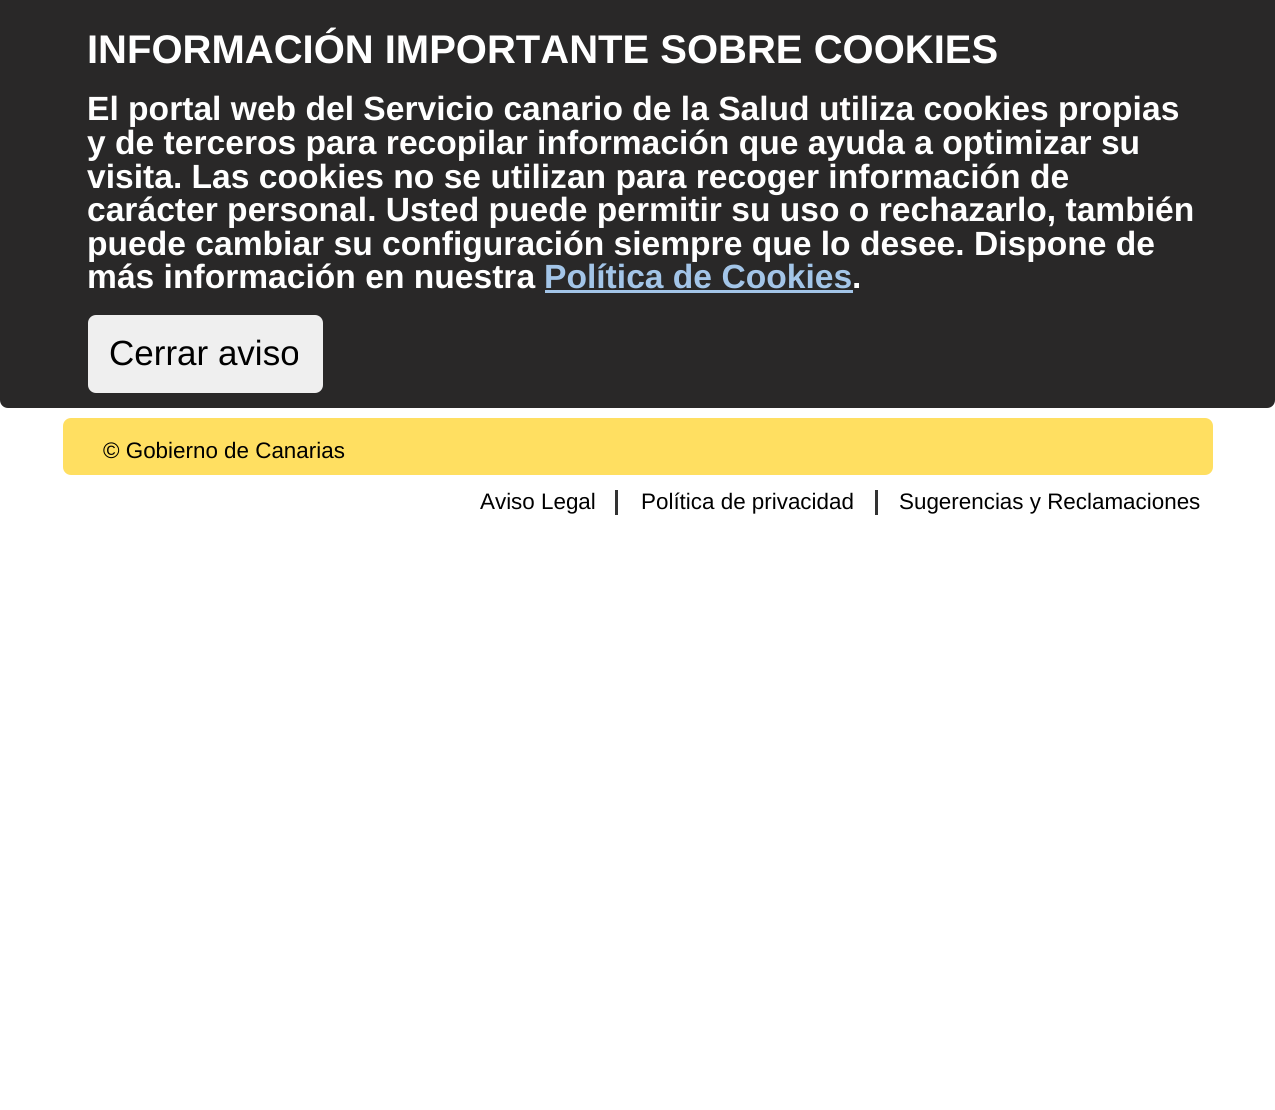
#include <cairo.h>
#include <math.h>
#include <stddef.h>


static void rgb(cairo_t *cr, int r, int g, int b)
{
	cairo_set_source_rgb(cr, r / 255.0, g / 255.0, b / 255.0);
}

static void face(cairo_t *cr, const char *family, double size, int italic, int bold)
{
	cairo_select_font_face(cr, family, italic ? CAIRO_FONT_SLANT_ITALIC : CAIRO_FONT_SLANT_NORMAL,
		bold ? CAIRO_FONT_WEIGHT_BOLD : CAIRO_FONT_WEIGHT_NORMAL);
	cairo_set_font_size(cr, size);
}

static void label(cairo_t *cr, double x, double y, const char *s)
{
	cairo_move_to(cr, x, y);
	cairo_show_text(cr, s);
}

static void rect(cairo_t *cr, double x, double y, double w, double h)
{
	cairo_rectangle(cr, x, y, w, h);
	cairo_fill(cr);
}

static void rrect(cairo_t *cr, double x, double y, double w, double h, double r)
{
	cairo_new_sub_path(cr);
	cairo_arc(cr, x + w - r, y + h - r, r, 0, M_PI / 2);
	cairo_arc(cr, x + r, y + h - r, r, M_PI / 2, M_PI);
	cairo_arc(cr, x + r, y + r, r, M_PI, 1.5 * M_PI);
	cairo_arc(cr, x + w - r, y + r, r, 1.5 * M_PI, 2 * M_PI);
	cairo_close_path(cr);
}

static void draw(cairo_t *cr) {
	rgb(cr, 255, 255, 255);
	cairo_paint(cr);
	rgb(cr, 41, 40, 40);
	cairo_new_path(cr);
	cairo_move_to(cr, 0, 0);
	cairo_line_to(cr, 1275, 0);
	cairo_line_to(cr, 1275, 400);
	cairo_curve_to(cr, 1275, 404.5, 1271.5, 408, 1267, 408);
	cairo_line_to(cr, 8, 408);
	cairo_curve_to(cr, 3.5, 408, 0, 404.5, 0, 400);
	cairo_close_path(cr);
	cairo_fill(cr);
	face(cr, "Liberation Sans", 40, 0, 1);
	rgb(cr, 255, 255, 255);
	label(cr, 87, 63, "INFORMACIÓN IMPORTANTE SOBRE COOKIES");
	face(cr, "Liberation Sans", 33.6, 0, 1);
	label(cr, 87, 120, "El portal web del Servicio canario de la Salud utiliza cookies propias");
	label(cr, 87, 154, "y de terceros para recopilar información que ayuda a optimizar su");
	label(cr, 87, 188, "visita. Las cookies no se utilizan para recoger información de");
	label(cr, 87, 221, "carácter personal. Usted puede permitir su uso o rechazarlo, también");
	label(cr, 87, 255, "puede cambiar su configuración siempre que lo desee. Dispone de");
	label(cr, 87, 288, "más información en nuestra");
	rgb(cr, 163, 197, 232);
	label(cr, 544, 288, "Política de Cookies");
	rect(cr, 545, 290, 308, 3);
	rgb(cr, 255, 255, 255);
	label(cr, 852, 288, ".");
	rgb(cr, 239, 239, 239);
	rrect(cr, 88, 315, 235, 78, 8);
	cairo_fill(cr);
	face(cr, "Liberation Sans", 35, 0, 0);
	rgb(cr, 0, 0, 0);
	label(cr, 109, 365, "Cerrar aviso");
	rgb(cr, 255, 223, 97);
	rrect(cr, 63, 418, 1150, 57, 8);
	cairo_fill(cr);
	face(cr, "Liberation Sans", 22.4, 0, 0);
	rgb(cr, 0, 0, 0);
	label(cr, 103, 458, "© Gobierno de Canarias");
	label(cr, 480, 509, "Aviso Legal");
	label(cr, 641, 509, "Política de privacidad");
	rgb(cr, 51, 51, 51);
	rect(cr, 615, 490, 3, 25);
	rgb(cr, 0, 0, 0);
	label(cr, 899, 509, "Sugerencias y Reclamaciones");
	rgb(cr, 51, 51, 51);
	rect(cr, 875, 490, 3, 25);
}

int main(void) {
	cairo_surface_t *surface = cairo_image_surface_create(CAIRO_FORMAT_RGB24, 1275, 1110);
	cairo_t *cr = cairo_create(surface);
	cairo_font_options_t *options = cairo_font_options_create();
	cairo_font_options_set_hint_metrics(options, CAIRO_HINT_METRICS_OFF);
	cairo_font_options_set_hint_style(options, CAIRO_HINT_STYLE_NONE);
	cairo_set_font_options(cr, options);
	cairo_set_miter_limit(cr, 4);
	draw(cr);
	cairo_surface_write_to_png(surface, "render.png");
	cairo_font_options_destroy(options);
	cairo_destroy(cr);
	cairo_surface_destroy(surface);
	return 0;
}
